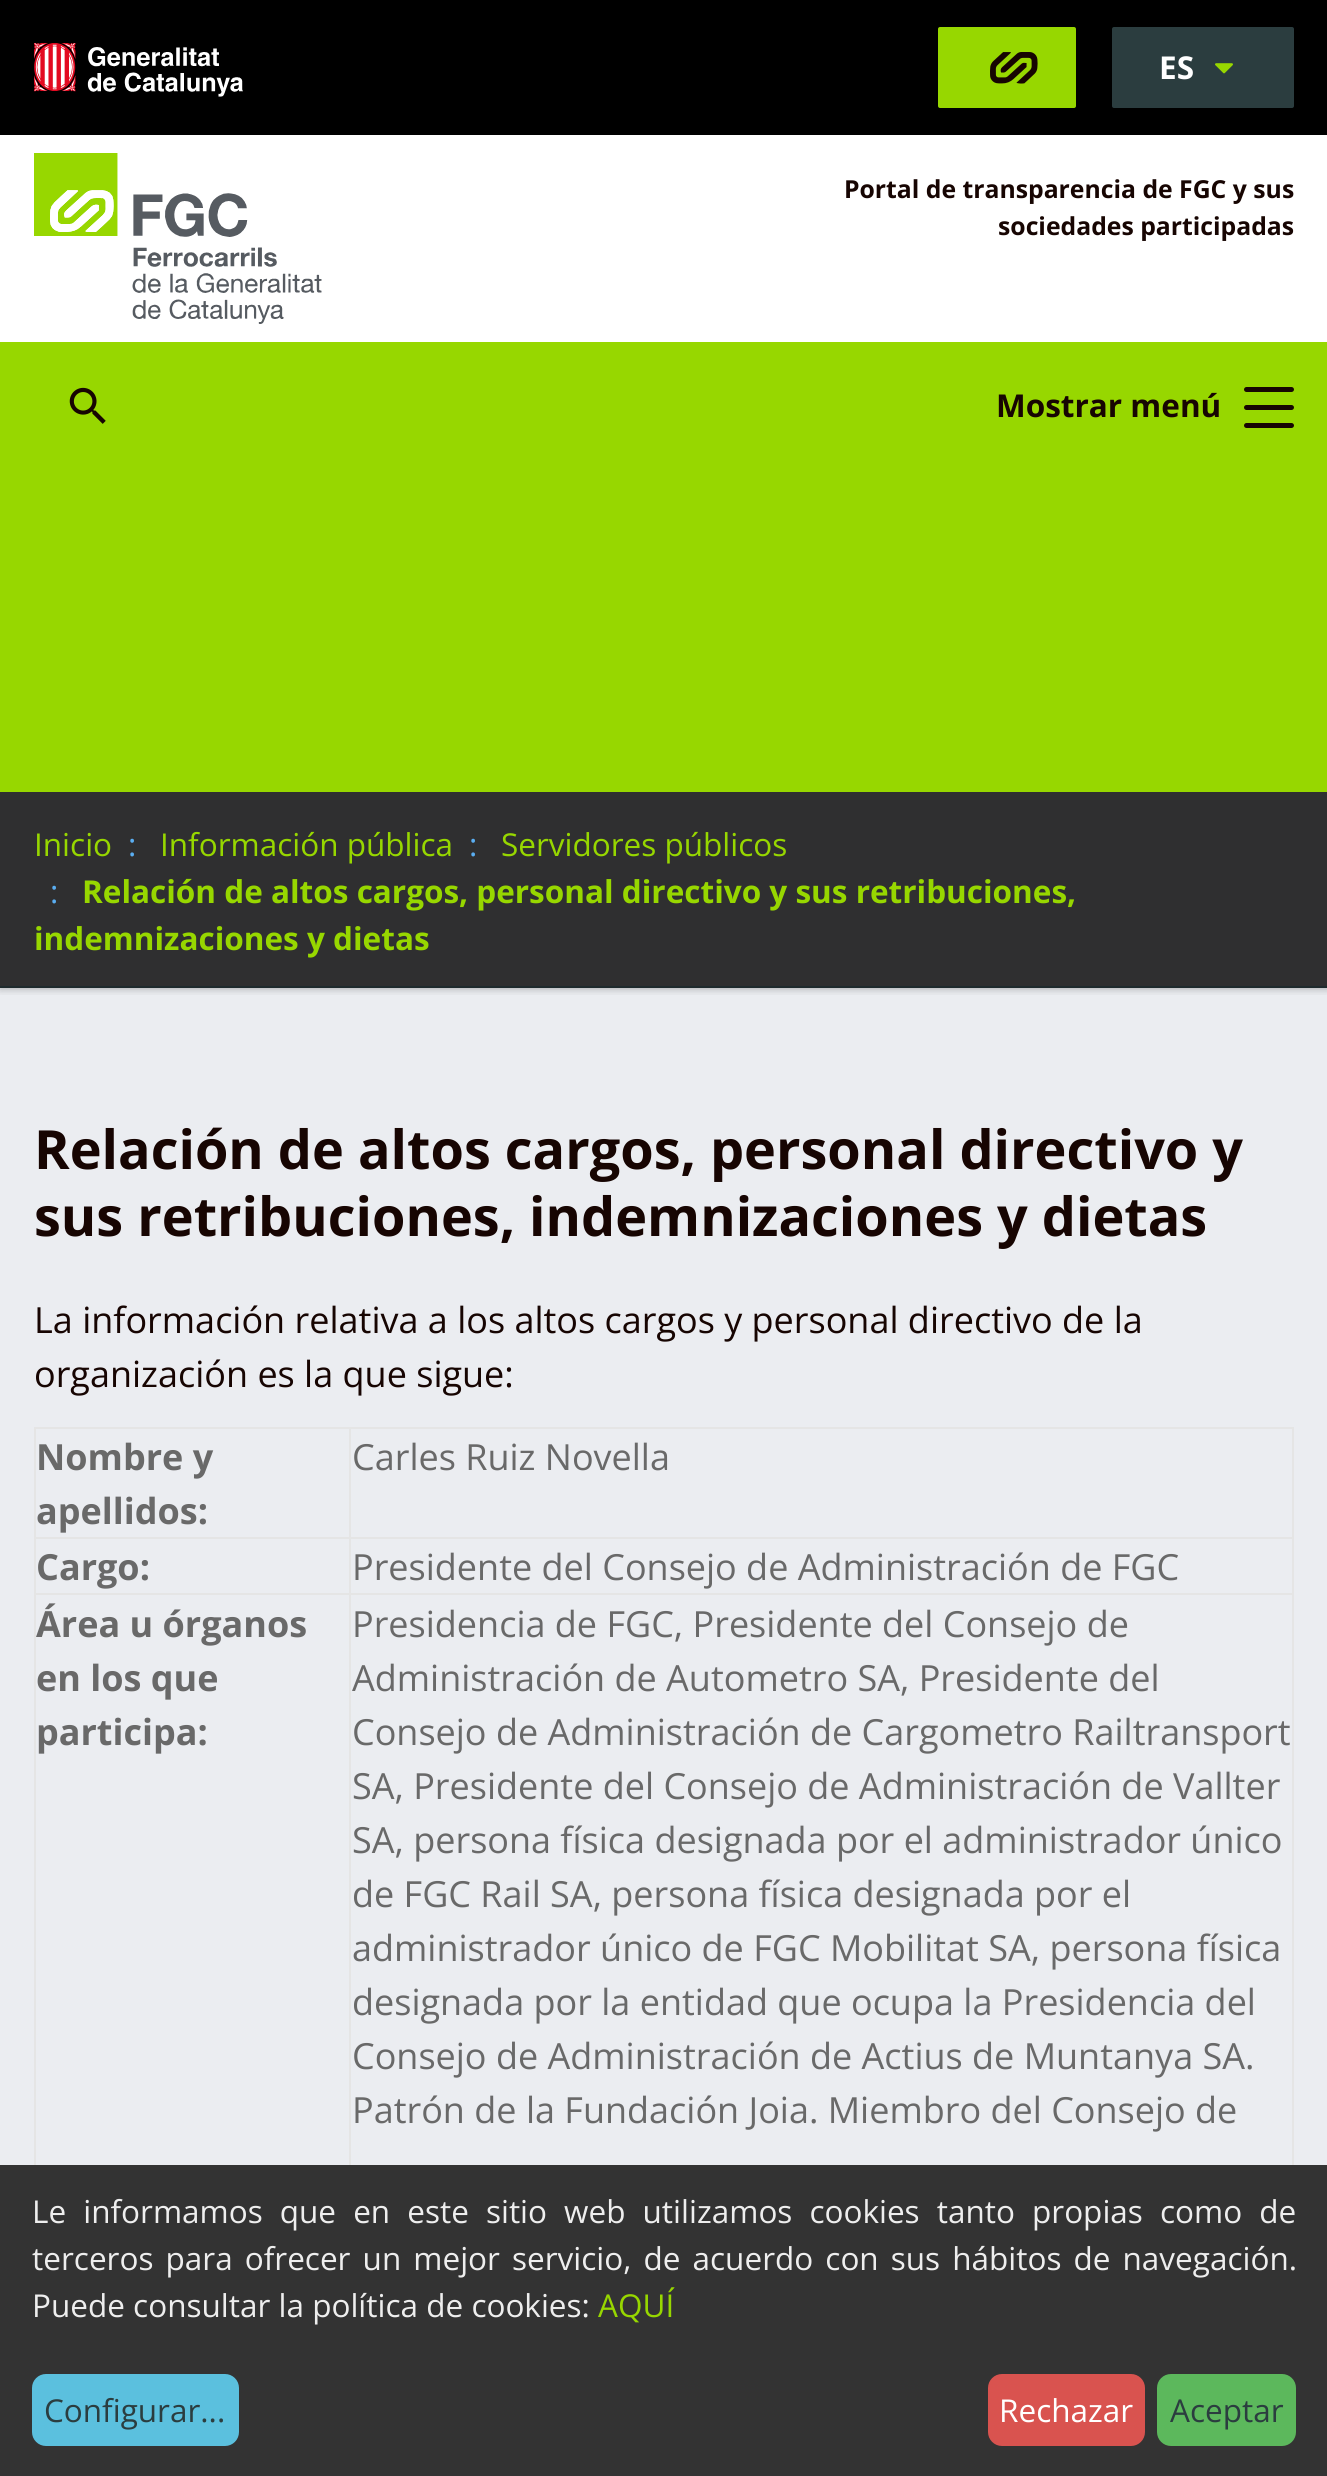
#include <cairo.h>
#include <math.h>
#include <stddef.h>


static void rgb(cairo_t *cr, int r, int g, int b)
{
	cairo_set_source_rgb(cr, r / 255.0, g / 255.0, b / 255.0);
}

static void face(cairo_t *cr, const char *family, double size, int italic, int bold)
{
	cairo_select_font_face(cr, family, italic ? CAIRO_FONT_SLANT_ITALIC : CAIRO_FONT_SLANT_NORMAL,
		bold ? CAIRO_FONT_WEIGHT_BOLD : CAIRO_FONT_WEIGHT_NORMAL);
	cairo_set_font_size(cr, size);
}

static void label(cairo_t *cr, double x, double y, const char *s)
{
	cairo_move_to(cr, x, y);
	cairo_show_text(cr, s);
}

static void tracked(cairo_t *cr, double x, double y, const char *s, double letter, double word)
{
	cairo_move_to(cr, x, y);
	while (*s) {
		char ch[5] = {0};
		int n = 0;
		do ch[n++] = *s++; while ((*s & 0xC0) == 0x80);
		cairo_show_text(cr, ch);
		cairo_rel_move_to(cr, letter + word * (*ch == ' '), 0);
	}
}

static void rect(cairo_t *cr, double x, double y, double w, double h)
{
	cairo_rectangle(cr, x, y, w, h);
	cairo_fill(cr);
}

static void rrect(cairo_t *cr, double x, double y, double w, double h, double r)
{
	cairo_new_sub_path(cr);
	cairo_arc(cr, x + w - r, y + h - r, r, 0, M_PI / 2);
	cairo_arc(cr, x + r, y + h - r, r, M_PI / 2, M_PI);
	cairo_arc(cr, x + r, y + r, r, M_PI, 1.5 * M_PI);
	cairo_arc(cr, x + w - r, y + r, r, 1.5 * M_PI, 2 * M_PI);
	cairo_close_path(cr);
}

static void soft_shadow(cairo_t *cr, double x, double y, double w, double h, double r, double blur, double alpha)
{
	cairo_push_group_with_content(cr, CAIRO_CONTENT_ALPHA);
	cairo_set_operator(cr, CAIRO_OPERATOR_SOURCE);
	for (int i = 15; i >= -15 && fmin(w, h) + blur * i / 3 > 0; i -= 2) {
		double e = blur * i / 6;
		cairo_set_source_rgba(cr, 0, 0, 0, alpha * erfc((i - 1) / 8.5) / 2);
		rrect(cr, x - e, y - e, w + 2 * e, h + 2 * e, fmax(0, fmin(r + e + blur * .6, fmin(w, h) / 2 + e)));
		cairo_fill(cr);
	}
	cairo_pattern_t *soft = cairo_pop_group(cr);
	cairo_mask(cr, soft);
	cairo_pattern_destroy(soft);
}

static void image(cairo_t *cr, const char *path, double x, double y, double w, double h)
{
	cairo_surface_t *image = cairo_image_surface_create_from_png(path);
	cairo_save(cr);
	cairo_set_source_surface(cr, image, x, y);
	cairo_rectangle(cr, x, y, w, h);
	cairo_fill(cr);
	cairo_restore(cr);
	cairo_surface_destroy(image);
}

static void draw(cairo_t *cr) {
	rgb(cr, 235, 237, 241);
	cairo_paint(cr);
	rgb(cr, 0, 0, 0);
	rect(cr, 0, 0, 1327, 135);
	image(cr, "image0.png", 34, 43, 209, 54);
	rgb(cr, 151, 215, 0);
	rrect(cr, 939, 28, 136, 79, 1);
	cairo_fill_preserve(cr);
	cairo_stroke(cr);
	image(cr, "image1.png", 990, 52, 48, 32);
	rgb(cr, 43, 61, 63);
	rrect(cr, 1113, 28, 180, 79, 1);
	cairo_fill_preserve(cr);
	cairo_stroke(cr);
	face(cr, "Open Sans", 31.5, 0, 1);
	rgb(cr, 255, 255, 255);
	label(cr, 1159, 79, "ES");
	image(cr, "image2.png", 1215, 63, 18, 11);
	rect(cr, 0, 135, 1327, 207);
	image(cr, "image3.png", 34, 153, 288, 171);
	face(cr, "Open Sans", 24.75, 0, 1);
	rgb(cr, 23, 5, 2);
	label(cr, 844, 198, "Portal de transparencia de FGC y sus");
	label(cr, 998, 235, "sociedades participadas");
	cairo_save(cr);
	cairo_rectangle(cr, 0, 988, 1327, 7);
	cairo_clip(cr);
	rgb(cr, 0, 0, 0);
	soft_shadow(cr, 0, 792, 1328, 196, 0, 4.5, 0.33);
	cairo_restore(cr);
	rgb(cr, 151, 215, 0);
	rect(cr, 0, 342, 1327, 450);
	image(cr, "image4.png", 69, 387, 37, 37);
	face(cr, "Open Sans", 31.5, 0, 1);
	rgb(cr, 23, 5, 2);
	label(cr, 996, 417, "Mostrar menú");
	rrect(cr, 1244, 405, 50, 5, 2.5);
	cairo_fill(cr);
	rrect(cr, 1244, 387, 50, 5, 2.5);
	cairo_fill(cr);
	rrect(cr, 1244, 423, 50, 5, 2.5);
	cairo_fill(cr);
	cairo_set_source_rgba(cr, 0, 0, 0, 0.8);
	rect(cr, 0, 792, 1327, 194);
	rgb(cr, 31, 43, 46);
	rect(cr, 0, 986, 1327, 2);
	face(cr, "Open Sans", 31.5, 0, 0);
	rgb(cr, 151, 215, 0);
	label(cr, 34, 856, "Inicio");
	rgb(cr, 90, 174, 242);
	label(cr, 128, 856, ":");
	rgb(cr, 151, 215, 0);
	label(cr, 160, 856, "Información pública");
	rgb(cr, 90, 174, 242);
	label(cr, 469, 856, ":");
	rgb(cr, 151, 215, 0);
	label(cr, 501, 856, "Servidores públicos");
	rgb(cr, 90, 174, 242);
	label(cr, 50, 903, ":");
	face(cr, "Open Sans", 31.5, 0, 1);
	rgb(cr, 151, 215, 0);
	label(cr, 82, 903, "Relación de altos cargos, personal directivo y sus retribuciones,");
	label(cr, 34, 950, "indemnizaciones y dietas");
	face(cr, "Open Sans", 54, 0, 1);
	rgb(cr, 23, 5, 2);
	label(cr, 34, 1169, "Relación de altos cargos, personal directivo y");
	label(cr, 34, 1236, "sus retribuciones, indemnizaciones y dietas");
	face(cr, "Open Sans", 36, 0, 0);
	label(cr, 34, 1333, "La información relativa a los altos cargos y personal directivo de la");
	label(cr, 34, 1387, "organización es la que sigue:");
	rgb(cr, 229, 229, 229);
	rect(cr, 34, 1427, 1260, 2);
	rect(cr, 1292, 1427, 2, 738);
	rect(cr, 34, 1427, 2, 738);
	face(cr, "Open Sans", 36, 0, 1);
	rgb(cr, 105, 105, 105);
	label(cr, 36, 1470, "Nombre y");
	label(cr, 36, 1524, "apellidos:");
	rgb(cr, 229, 229, 229);
	rect(cr, 349, 1537, 945, 2);
	rect(cr, 349, 1593, 945, 2);
	rect(cr, 349, 1593, 2, 572);
	rect(cr, 34, 1593, 317, 2);
	rect(cr, 349, 1537, 2, 58);
	rect(cr, 34, 1537, 317, 2);
	rect(cr, 349, 1427, 2, 112);
	face(cr, "Open Sans", 36, 0, 0);
	rgb(cr, 105, 105, 105);
	label(cr, 352, 1470, "Carles Ruiz Novella");
	face(cr, "Open Sans", 36, 0, 1);
	label(cr, 36, 1580, "Cargo:");
	face(cr, "Open Sans", 36, 0, 0);
	label(cr, 352, 1580, "Presidente del Consejo de Administración de FGC");
	face(cr, "Open Sans", 36, 0, 1);
	label(cr, 36, 1637, "Área u órganos");
	label(cr, 36, 1691, "en los que");
	label(cr, 36, 1745, "participa:");
	face(cr, "Open Sans", 36, 0, 0);
	label(cr, 352, 1637, "Presidencia de FGC, Presidente del Consejo de");
	label(cr, 352, 1691, "Administración de Autometro SA, Presidente del");
	label(cr, 352, 1745, "Consejo de Administración de Cargometro Railtransport");
	label(cr, 352, 1799, "SA, Presidente del Consejo de Administración de Vallter");
	label(cr, 352, 1853, "SA, persona física designada por el administrador único");
	label(cr, 352, 1907, "de FGC Rail SA, persona física designada por el");
	label(cr, 352, 1961, "administrador único de FGC Mobilitat SA, persona física");
	label(cr, 352, 2015, "designada por la entidad que ocupa la Presidencia del");
	label(cr, 352, 2069, "Consejo de Administración de Actius de Muntanya SA.");
	label(cr, 352, 2123, "Patrón de la Fundación Joia. Miembro del Consejo de");
	rgb(cr, 51, 51, 51);
	rect(cr, 0, 2165, 1327, 311);
	face(cr, "Open Sans", 31.5, 0, 0);
	rgb(cr, 238, 238, 238);
	tracked(cr, 32, 2223, "Le informamos que en este sitio web utilizamos cookies tanto propias como de", 0, 8.9);
	tracked(cr, 32, 2270, "terceros para ofrecer un mejor servicio, de acuerdo con sus hábitos de navegación.", 0, 3.9);
	label(cr, 32, 2317, "Puede consultar la política de cookies:");
	rgb(cr, 151, 215, 0);
	label(cr, 598, 2317, "AQUÍ");
	rgb(cr, 91, 192, 222);
	rrect(cr, 32, 2374, 207, 72, 14);
	cairo_fill(cr);
	rgb(cr, 43, 61, 63);
	label(cr, 44, 2422, "Configurar...");
	rgb(cr, 217, 83, 79);
	rrect(cr, 988, 2374, 157, 72, 14);
	cairo_fill(cr);
	rgb(cr, 255, 255, 255);
	label(cr, 999, 2422, "Rechazar");
	rgb(cr, 92, 184, 92);
	rrect(cr, 1157, 2374, 139, 72, 14);
	cairo_fill(cr);
	rgb(cr, 43, 61, 63);
	label(cr, 1170, 2422, "Aceptar");
}

int main(void) {
	cairo_surface_t *surface = cairo_image_surface_create(CAIRO_FORMAT_RGB24, 1327, 2476);
	cairo_t *cr = cairo_create(surface);
	cairo_font_options_t *options = cairo_font_options_create();
	cairo_font_options_set_hint_metrics(options, CAIRO_HINT_METRICS_OFF);
	cairo_font_options_set_hint_style(options, CAIRO_HINT_STYLE_NONE);
	cairo_set_font_options(cr, options);
	cairo_set_miter_limit(cr, 4);
	draw(cr);
	cairo_surface_write_to_png(surface, "render.png");
	cairo_font_options_destroy(options);
	cairo_destroy(cr);
	cairo_surface_destroy(surface);
	return 0;
}
